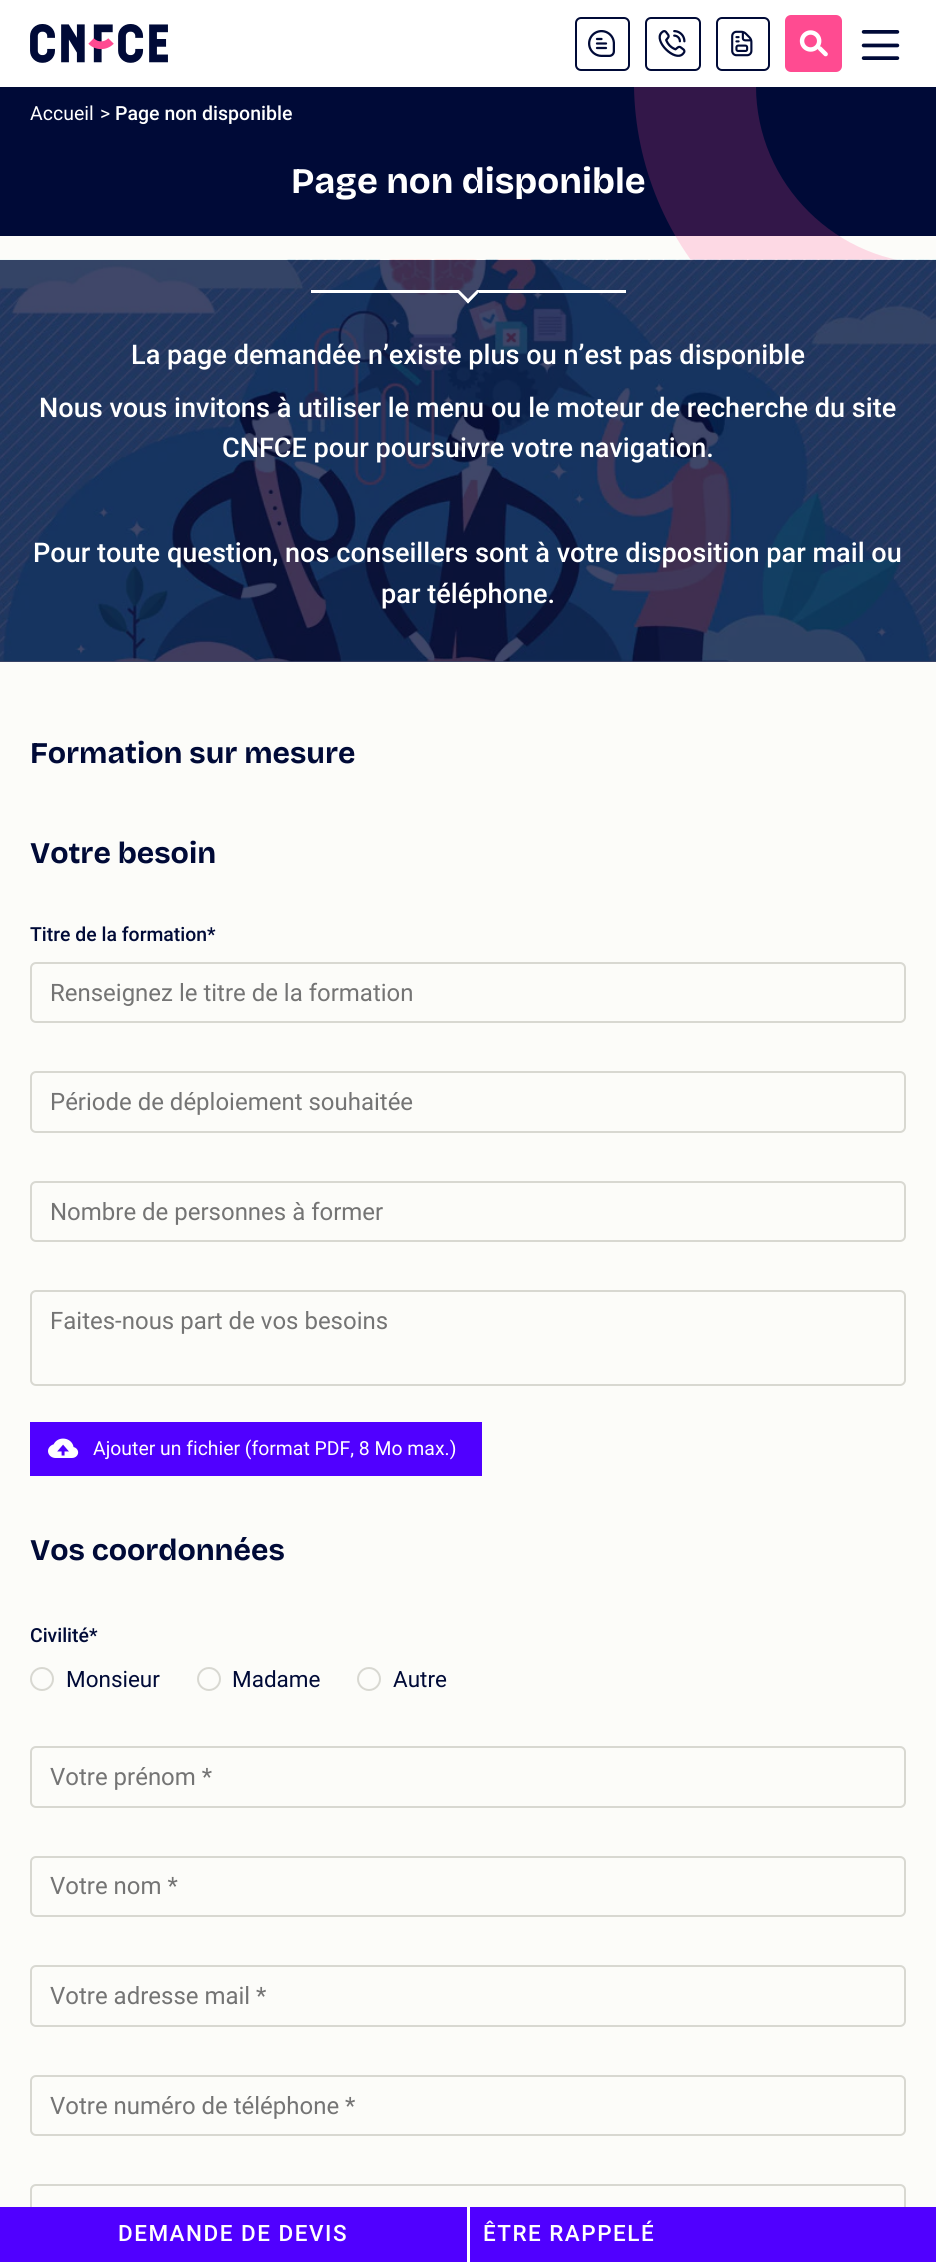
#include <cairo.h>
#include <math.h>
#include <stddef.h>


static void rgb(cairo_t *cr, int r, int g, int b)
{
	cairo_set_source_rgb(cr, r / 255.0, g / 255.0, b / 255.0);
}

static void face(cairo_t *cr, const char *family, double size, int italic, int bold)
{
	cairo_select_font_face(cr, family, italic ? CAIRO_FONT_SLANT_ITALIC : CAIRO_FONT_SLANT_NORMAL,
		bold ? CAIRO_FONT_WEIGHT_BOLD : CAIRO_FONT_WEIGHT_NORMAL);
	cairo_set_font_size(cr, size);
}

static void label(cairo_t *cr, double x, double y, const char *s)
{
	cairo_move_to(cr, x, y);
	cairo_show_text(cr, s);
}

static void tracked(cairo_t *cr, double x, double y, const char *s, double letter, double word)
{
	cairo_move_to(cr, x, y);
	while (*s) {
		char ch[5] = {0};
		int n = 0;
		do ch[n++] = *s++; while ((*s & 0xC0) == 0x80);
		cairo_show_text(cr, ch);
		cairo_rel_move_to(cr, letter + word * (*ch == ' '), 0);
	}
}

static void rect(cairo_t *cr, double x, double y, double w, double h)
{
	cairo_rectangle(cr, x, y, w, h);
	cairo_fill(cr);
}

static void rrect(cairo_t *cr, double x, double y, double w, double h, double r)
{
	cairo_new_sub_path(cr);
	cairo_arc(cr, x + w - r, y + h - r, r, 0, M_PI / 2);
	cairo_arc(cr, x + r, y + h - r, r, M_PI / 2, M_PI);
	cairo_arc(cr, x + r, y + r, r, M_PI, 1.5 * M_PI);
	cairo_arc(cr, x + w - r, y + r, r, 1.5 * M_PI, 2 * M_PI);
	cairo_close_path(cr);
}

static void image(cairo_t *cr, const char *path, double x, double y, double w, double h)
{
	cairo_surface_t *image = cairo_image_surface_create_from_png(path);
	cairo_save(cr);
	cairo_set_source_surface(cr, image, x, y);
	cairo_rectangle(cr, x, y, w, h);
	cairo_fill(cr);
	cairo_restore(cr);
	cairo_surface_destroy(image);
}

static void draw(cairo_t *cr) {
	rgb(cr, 252, 252, 249);
	cairo_paint(cr);
	rgb(cr, 0, 10, 55);
	rect(cr, 0, 87, 936, 149);
	cairo_set_source_rgba(cr, 1, 0.294, 0.569, 0.2);
	cairo_new_path(cr);
	cairo_move_to(cr, 723, 298);
	cairo_curve_to(cr, 667, 242, 635, 165, 634, 86);
	cairo_line_to(cr, 756, 86);
	cairo_curve_to(cr, 756, 184, 837, 264, 935, 264);
	cairo_line_to(cr, 935, 386);
	cairo_curve_to(cr, 875, 386, 817, 368, 767, 335);
	cairo_curve_to(cr, 757, 328, 747, 320, 737, 311);
	cairo_close_path(cr);
	cairo_fill(cr);
	rgb(cr, 255, 255, 255);
	rect(cr, 0, 0, 936, 87);
	image(cr, "image0.png", 30, 24, 138, 39);
	rrect(cr, 576, 18, 53, 52, 5);
	rgb(cr, 0, 10, 55);
	cairo_stroke(cr);
	image(cr, "image1.png", 588, 30, 27, 27);
	rrect(cr, 646, 18, 54, 52, 5);
	cairo_stroke(cr);
	image(cr, "image2.png", 658, 30, 28, 27);
	rrect(cr, 717, 18, 52, 52, 5);
	cairo_stroke(cr);
	image(cr, "image3.png", 731, 30, 22, 27);
	rgb(cr, 255, 75, 145);
	rrect(cr, 786, 16, 55, 55, 5);
	cairo_fill_preserve(cr);
	cairo_stroke(cr);
	image(cr, "image4.png", 799, 30, 29, 27);
	image(cr, "image5.png", 861, 30, 39, 30);
	face(cr, "Roboto", 19.5, 0, 0);
	rgb(cr, 255, 255, 255);
	label(cr, 30, 120, "Accueil");
	label(cr, 100, 120, ">");
	face(cr, "Roboto Medium", 19.5, 0, 0);
	label(cr, 115, 120, "Page non disponible");
	face(cr, "Bricolage Grotesque", 36, 0, 1);
	label(cr, 291, 193, "Page non disponible");
	image(cr, "image6.png", 0, 259, 936, 403);
	cairo_set_source_rgba(cr, 0, 0.039, 0.216, 0.75);
	rect(cr, 0, 260, 936, 402);
	rgb(cr, 255, 255, 255);
	rect(cr, 311, 290, 147, 3);
	cairo_save(cr);
	cairo_rectangle(cr, 458, 290, 21, 15);
	cairo_clip(cr);
	cairo_new_path(cr);
	cairo_move_to(cr, 478.5, 288.5);
	cairo_line_to(cr, 480.5, 290.5);
	cairo_line_to(cr, 468, 303.5);
	cairo_line_to(cr, 466, 301);
	cairo_close_path(cr);
	cairo_fill(cr);
	cairo_new_path(cr);
	cairo_move_to(cr, 457.5, 288.5);
	cairo_line_to(cr, 470, 301);
	cairo_line_to(cr, 468, 303.5);
	cairo_line_to(cr, 455.5, 290.5);
	cairo_close_path(cr);
	cairo_fill(cr);
	cairo_restore(cr);
	rect(cr, 479, 290, 147, 3);
	face(cr, "Roboto Medium", 27.1, 0, 0);
	label(cr, 131, 364, "La page demandée n’existe plus ou n’est pas disponible");
	label(cr, 39, 417, "Nous vous invitons à utiliser le menu ou le moteur de recherche du site");
	label(cr, 222, 457, "CNFCE pour poursuivre votre navigation.");
	label(cr, 33, 562, "Pour toute question, nos conseillers sont à votre disposition par mail ou");
	label(cr, 381, 603, "par téléphone.");
	face(cr, "Bricolage Grotesque", 30, 0, 1);
	rgb(cr, 0, 10, 55);
	label(cr, 30, 763, "Formation sur mesure");
	label(cr, 30, 863, "Votre besoin");
	face(cr, "Roboto Medium", 19.4, 0, 0);
	label(cr, 30, 941, "Titre de la formation*");
	rrect(cr, 31, 963, 874, 59, 5);
	rgb(cr, 216, 216, 209);
	cairo_stroke(cr);
	face(cr, "Roboto", 24, 0, 0);
	rgb(cr, 116, 116, 116);
	label(cr, 50, 1001, "Renseignez le titre de la formation");
	rrect(cr, 31, 1072, 874, 60, 5);
	rgb(cr, 216, 216, 209);
	cairo_stroke(cr);
	rgb(cr, 116, 116, 116);
	label(cr, 50, 1110, "Période de déploiement souhaitée");
	rrect(cr, 31, 1182, 874, 59, 5);
	rgb(cr, 216, 216, 209);
	cairo_stroke(cr);
	rgb(cr, 116, 116, 116);
	label(cr, 50, 1220, "Nombre de personnes à former");
	rrect(cr, 31, 1291, 874, 94, 5);
	rgb(cr, 216, 216, 209);
	cairo_stroke(cr);
	rgb(cr, 116, 116, 116);
	label(cr, 50, 1329, "Faites-nous part de vos besoins");
	rgb(cr, 80, 0, 255);
	rect(cr, 30, 1422, 452, 54);
	image(cr, "image7.png", 48, 1438, 31, 20);
	face(cr, "Roboto", 19.4, 0, 0);
	rgb(cr, 255, 255, 255);
	label(cr, 93, 1455, "Ajouter un fichier (format PDF, 8 Mo max.)");
	face(cr, "Bricolage Grotesque", 30, 0, 1);
	rgb(cr, 0, 10, 55);
	label(cr, 30, 1560, "Vos coordonnées");
	face(cr, "Roboto Medium", 19.4, 0, 0);
	label(cr, 30, 1642, "Civilité*");
	cairo_new_path(cr);
	cairo_arc(cr, 42, 1679, 11, 0, 2 * M_PI);
	rgb(cr, 216, 216, 209);
	cairo_stroke(cr);
	face(cr, "Roboto", 22.5, 0, 0);
	rgb(cr, 0, 10, 55);
	label(cr, 66, 1687, "Monsieur");
	cairo_new_path(cr);
	cairo_arc(cr, 209, 1679, 11, 0, 2 * M_PI);
	rgb(cr, 216, 216, 209);
	cairo_stroke(cr);
	rgb(cr, 0, 10, 55);
	label(cr, 232, 1687, "Madame");
	cairo_new_path(cr);
	cairo_arc(cr, 369, 1679, 11, 0, 2 * M_PI);
	rgb(cr, 216, 216, 209);
	cairo_stroke(cr);
	rgb(cr, 0, 10, 55);
	label(cr, 393, 1687, "Autre");
	rrect(cr, 31, 1747, 874, 60, 5);
	rgb(cr, 216, 216, 209);
	cairo_stroke(cr);
	face(cr, "Roboto", 24, 0, 0);
	rgb(cr, 116, 116, 116);
	label(cr, 50, 1785, "Votre prénom *");
	rrect(cr, 31, 1857, 874, 59, 5);
	rgb(cr, 216, 216, 209);
	cairo_stroke(cr);
	rgb(cr, 116, 116, 116);
	label(cr, 50, 1894, "Votre nom *");
	rrect(cr, 31, 1966, 874, 60, 5);
	rgb(cr, 216, 216, 209);
	cairo_stroke(cr);
	rgb(cr, 116, 116, 116);
	label(cr, 50, 2004, "Votre adresse mail *");
	rrect(cr, 31, 2076, 874, 59, 5);
	rgb(cr, 216, 216, 209);
	cairo_stroke(cr);
	rgb(cr, 116, 116, 116);
	label(cr, 50, 2114, "Votre numéro de téléphone *");
	rrect(cr, 31, 2185, 874, 60, 5);
	rgb(cr, 216, 216, 209);
	cairo_stroke(cr);
	rgb(cr, 255, 255, 255);
	rect(cr, 467, 2207, 3, 55);
	rgb(cr, 80, 0, 255);
	rect(cr, 0, 2207, 467, 55);
	face(cr, "Roboto Medium", 22.5, 0, 0);
	rgb(cr, 255, 255, 255);
	tracked(cr, 118, 2241, "DEMANDE DE DEVIS", 1.5, 0);
	rgb(cr, 80, 0, 255);
	rect(cr, 470, 2207, 466, 55);
	rgb(cr, 255, 255, 255);
	tracked(cr, 483, 2241, "ÊTRE RAPPELÉ", 1.5, 0);
}

int main(void) {
	cairo_surface_t *surface = cairo_image_surface_create(CAIRO_FORMAT_RGB24, 936, 2262);
	cairo_t *cr = cairo_create(surface);
	cairo_font_options_t *options = cairo_font_options_create();
	cairo_font_options_set_hint_metrics(options, CAIRO_HINT_METRICS_OFF);
	cairo_font_options_set_hint_style(options, CAIRO_HINT_STYLE_NONE);
	cairo_set_font_options(cr, options);
	cairo_set_miter_limit(cr, 4);
	draw(cr);
	cairo_surface_write_to_png(surface, "render.png");
	cairo_font_options_destroy(options);
	cairo_destroy(cr);
	cairo_surface_destroy(surface);
	return 0;
}
